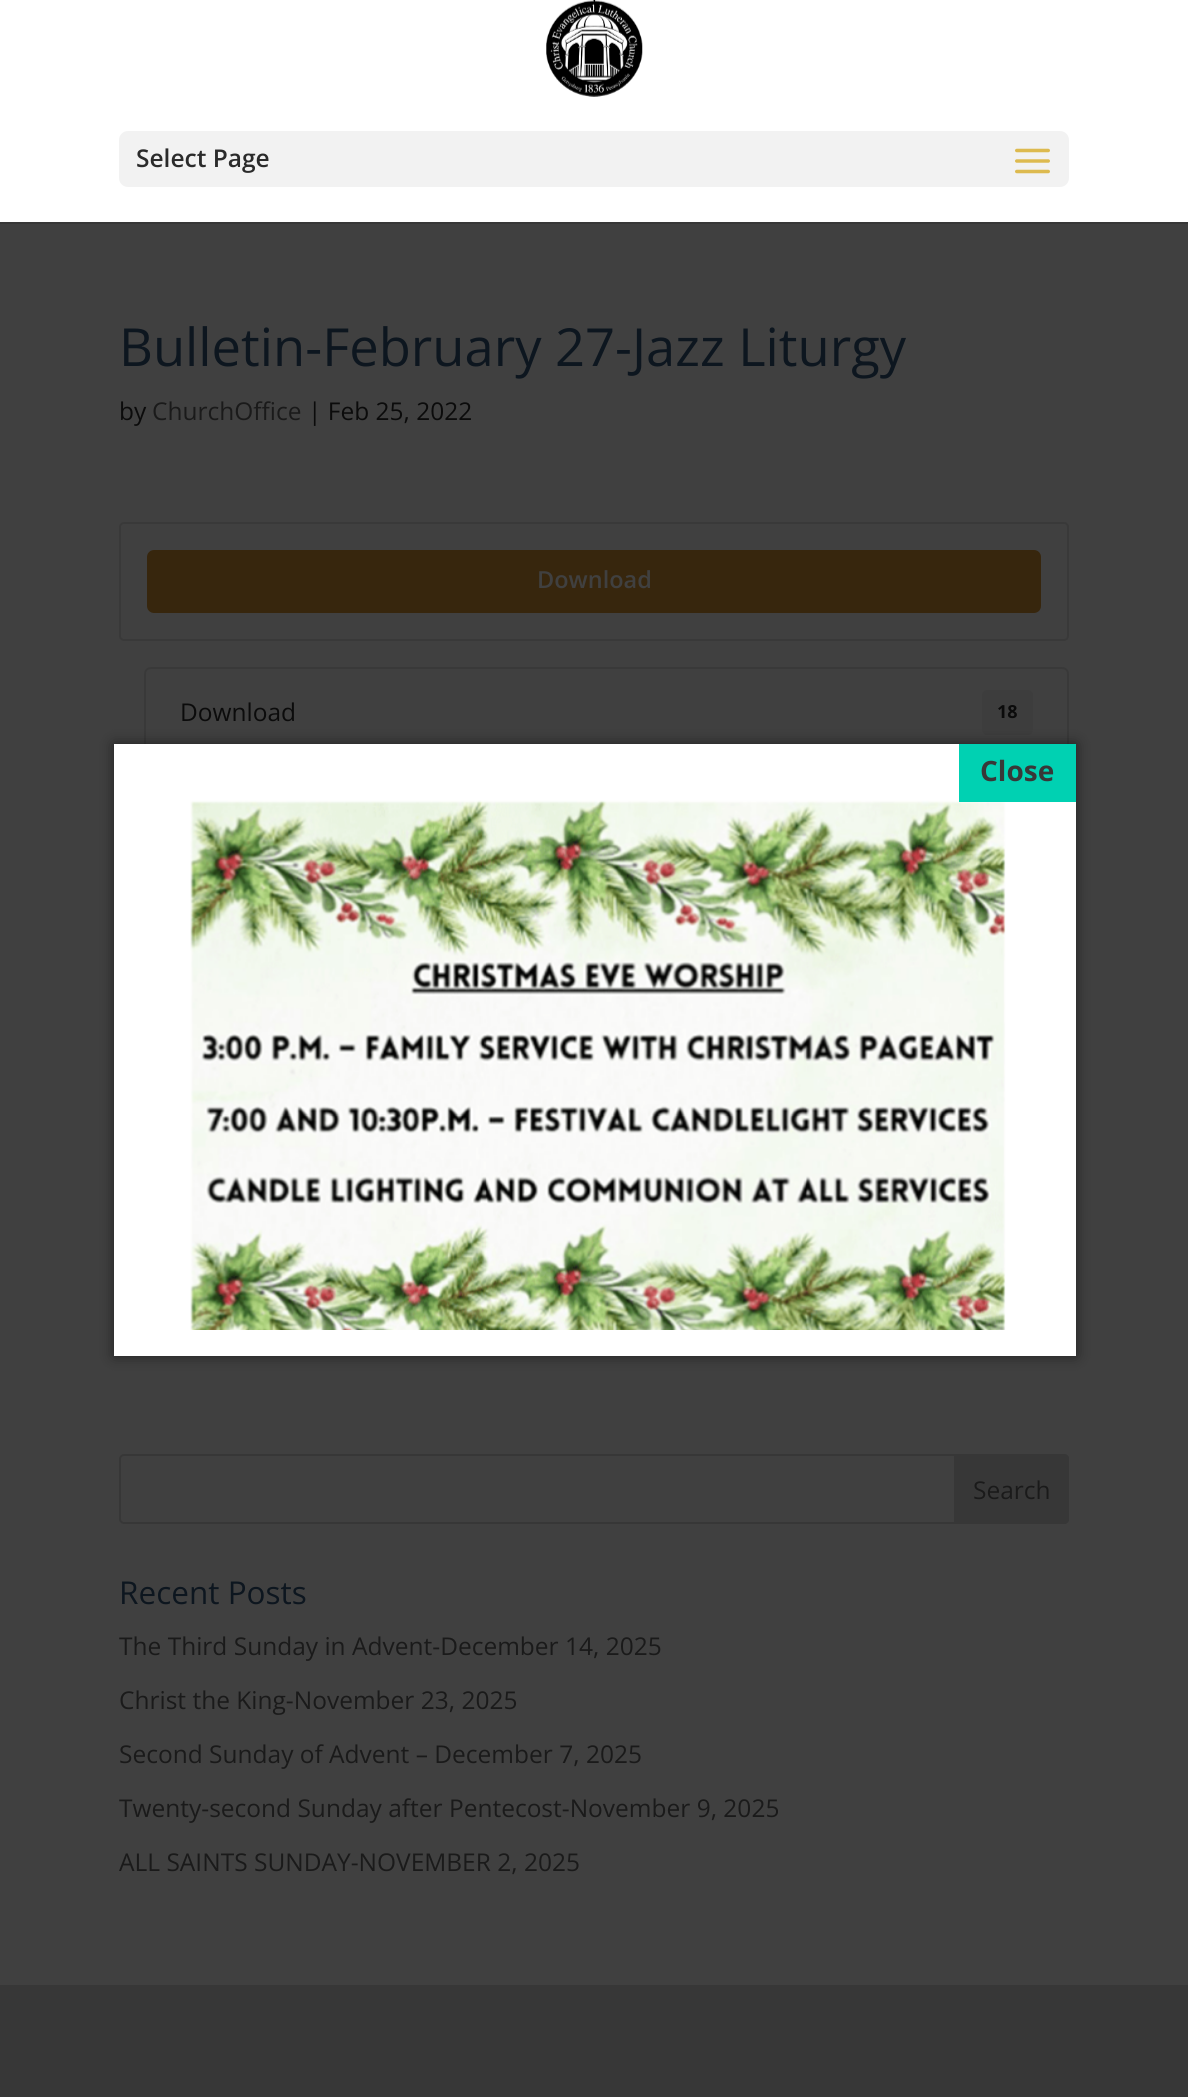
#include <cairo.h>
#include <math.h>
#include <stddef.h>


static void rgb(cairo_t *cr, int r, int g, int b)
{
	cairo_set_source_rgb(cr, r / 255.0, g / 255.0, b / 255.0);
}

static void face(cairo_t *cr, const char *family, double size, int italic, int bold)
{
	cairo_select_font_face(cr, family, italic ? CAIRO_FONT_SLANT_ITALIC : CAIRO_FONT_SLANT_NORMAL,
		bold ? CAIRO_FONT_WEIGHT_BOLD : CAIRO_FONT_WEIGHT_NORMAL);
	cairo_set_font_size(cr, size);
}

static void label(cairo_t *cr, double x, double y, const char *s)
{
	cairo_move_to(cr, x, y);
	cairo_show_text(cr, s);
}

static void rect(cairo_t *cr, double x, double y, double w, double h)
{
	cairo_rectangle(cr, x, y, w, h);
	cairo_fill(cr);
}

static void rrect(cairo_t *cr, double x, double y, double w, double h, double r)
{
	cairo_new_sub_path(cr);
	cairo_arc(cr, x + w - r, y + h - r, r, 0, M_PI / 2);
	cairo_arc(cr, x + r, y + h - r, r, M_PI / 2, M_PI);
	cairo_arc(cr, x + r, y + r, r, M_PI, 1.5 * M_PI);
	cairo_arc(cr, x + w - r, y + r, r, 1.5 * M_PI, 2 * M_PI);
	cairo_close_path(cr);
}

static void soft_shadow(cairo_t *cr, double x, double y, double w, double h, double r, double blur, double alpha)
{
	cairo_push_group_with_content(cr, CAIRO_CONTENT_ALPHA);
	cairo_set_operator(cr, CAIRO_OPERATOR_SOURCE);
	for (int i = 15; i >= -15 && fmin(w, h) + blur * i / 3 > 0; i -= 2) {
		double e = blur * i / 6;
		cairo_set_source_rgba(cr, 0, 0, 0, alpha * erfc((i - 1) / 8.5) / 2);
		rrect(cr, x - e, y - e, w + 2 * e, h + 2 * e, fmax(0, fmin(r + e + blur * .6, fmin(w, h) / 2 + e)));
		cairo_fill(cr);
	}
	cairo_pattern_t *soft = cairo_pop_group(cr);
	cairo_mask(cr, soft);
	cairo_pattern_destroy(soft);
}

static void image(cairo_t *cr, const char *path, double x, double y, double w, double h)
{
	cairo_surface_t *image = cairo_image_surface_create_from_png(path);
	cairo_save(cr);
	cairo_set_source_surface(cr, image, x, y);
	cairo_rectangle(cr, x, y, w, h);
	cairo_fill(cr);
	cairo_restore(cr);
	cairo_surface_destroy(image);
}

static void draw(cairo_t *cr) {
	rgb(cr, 55, 55, 55);
	cairo_paint(cr);
	rgb(cr, 255, 255, 255);
	rect(cr, 0, 0, 1188, 222);
	image(cr, "image0.png", 546, 0, 97, 97);
	rgb(cr, 242, 242, 242);
	rrect(cr, 119, 131, 950, 56, 9);
	cairo_fill(cr);
	face(cr, "Open Sans SemiBold", 24.5, 0, 0);
	rgb(cr, 43, 43, 43);
	label(cr, 136, 167, "Select Page");
	image(cr, "image1.png", 1015, 148, 35, 26);
	rgb(cr, 64, 64, 64);
	rect(cr, 0, 224, 1188, 1761);
	face(cr, "Open Sans", 52.5, 0, 0);
	rgb(cr, 13, 22, 31);
	label(cr, 119, 366, "Bulletin-February 27-Jazz Liturgy");
	face(cr, "Open Sans", 24.5, 0, 0);
	rgb(cr, 11, 11, 11);
	label(cr, 119, 420, "by");
	rgb(cr, 26, 26, 26);
	label(cr, 152, 420, "ChurchOffice");
	rgb(cr, 11, 11, 11);
	label(cr, 308, 420, "| Feb 25, 2022");
	rrect(cr, 120, 523, 948, 117, 4);
	rgb(cr, 57, 57, 57);
	cairo_stroke(cr);
	rgb(cr, 55, 38, 13);
	rrect(cr, 147, 550, 894, 63, 7);
	cairo_fill(cr);
	face(cr, "Open Sans SemiBold", 23.5, 0, 0);
	rgb(cr, 64, 64, 64);
	label(cr, 537, 588, "Download");
	cairo_new_path(cr);
	cairo_move_to(cr, 151, 668);
	cairo_line_to(cr, 1062, 668);
	cairo_curve_to(cr, 1065.5, 668, 1068, 670.5, 1068, 674);
	cairo_line_to(cr, 1068, 757);
	cairo_line_to(cr, 145, 757);
	cairo_line_to(cr, 145, 674);
	cairo_curve_to(cr, 145, 670.5, 147.5, 668, 151, 668);
	cairo_close_path(cr);
	rgb(cr, 57, 57, 57);
	cairo_stroke(cr);
	face(cr, "Open Sans", 24.5, 0, 0);
	rgb(cr, 11, 11, 11);
	label(cr, 180, 721, "Download");
	rgb(cr, 61, 61, 61);
	rrect(cr, 982, 690, 51, 45, 5);
	cairo_fill(cr);
	face(cr, "Open Sans", 18, 0, 1);
	rgb(cr, 11, 11, 11);
	label(cr, 997, 718, "18");
	rrect(cr, 120, 1455, 948, 68, 4);
	rgb(cr, 55, 55, 55);
	cairo_stroke(cr);
	cairo_new_path(cr);
	cairo_move_to(cr, 954, 1454);
	cairo_line_to(cr, 1064, 1454);
	cairo_curve_to(cr, 1067, 1454, 1069, 1456, 1069, 1459);
	cairo_line_to(cr, 1069, 1519);
	cairo_curve_to(cr, 1069, 1522, 1067, 1524, 1064, 1524);
	cairo_line_to(cr, 954, 1524);
	cairo_close_path(cr);
	cairo_fill(cr);
	face(cr, "Open Sans", 24.5, 0, 0);
	rgb(cr, 26, 26, 26);
	label(cr, 973, 1499, "Search");
	face(cr, "Open Sans", 31.5, 0, 0);
	rgb(cr, 13, 22, 31);
	label(cr, 119, 1604, "Recent Posts");
	face(cr, "Open Sans", 24.5, 0, 0);
	rgb(cr, 26, 26, 26);
	label(cr, 119, 1655, "The Third Sunday in Advent-December 14, 2025");
	label(cr, 119, 1709, "Christ the King-November 23, 2025");
	label(cr, 119, 1763, "Second Sunday of Advent – December 7, 2025");
	label(cr, 119, 1817, "Twenty-second Sunday after Pentecost-November 9, 2025");
	label(cr, 119, 1871, "ALL SAINTS SUNDAY-NOVEMBER 2, 2025");
	rgb(cr, 0, 0, 0);
	soft_shadow(cr, 114, 744, 962, 612, 0, 7, 0.5);
	rgb(cr, 255, 255, 255);
	rect(cr, 114, 744, 962, 612);
	image(cr, "image2.png", 190, 800, 816, 530);
	rgb(cr, 0, 209, 178);
	rect(cr, 959, 744, 117, 58);
	face(cr, "Open Sans", 28, 0, 1);
	rgb(cr, 56, 56, 56);
	label(cr, 980, 781, "Close");
}

int main(void) {
	cairo_surface_t *surface = cairo_image_surface_create(CAIRO_FORMAT_RGB24, 1188, 2097);
	cairo_t *cr = cairo_create(surface);
	cairo_font_options_t *options = cairo_font_options_create();
	cairo_font_options_set_hint_metrics(options, CAIRO_HINT_METRICS_OFF);
	cairo_font_options_set_hint_style(options, CAIRO_HINT_STYLE_NONE);
	cairo_set_font_options(cr, options);
	cairo_set_miter_limit(cr, 4);
	draw(cr);
	cairo_surface_write_to_png(surface, "render.png");
	cairo_font_options_destroy(options);
	cairo_destroy(cr);
	cairo_surface_destroy(surface);
	return 0;
}
